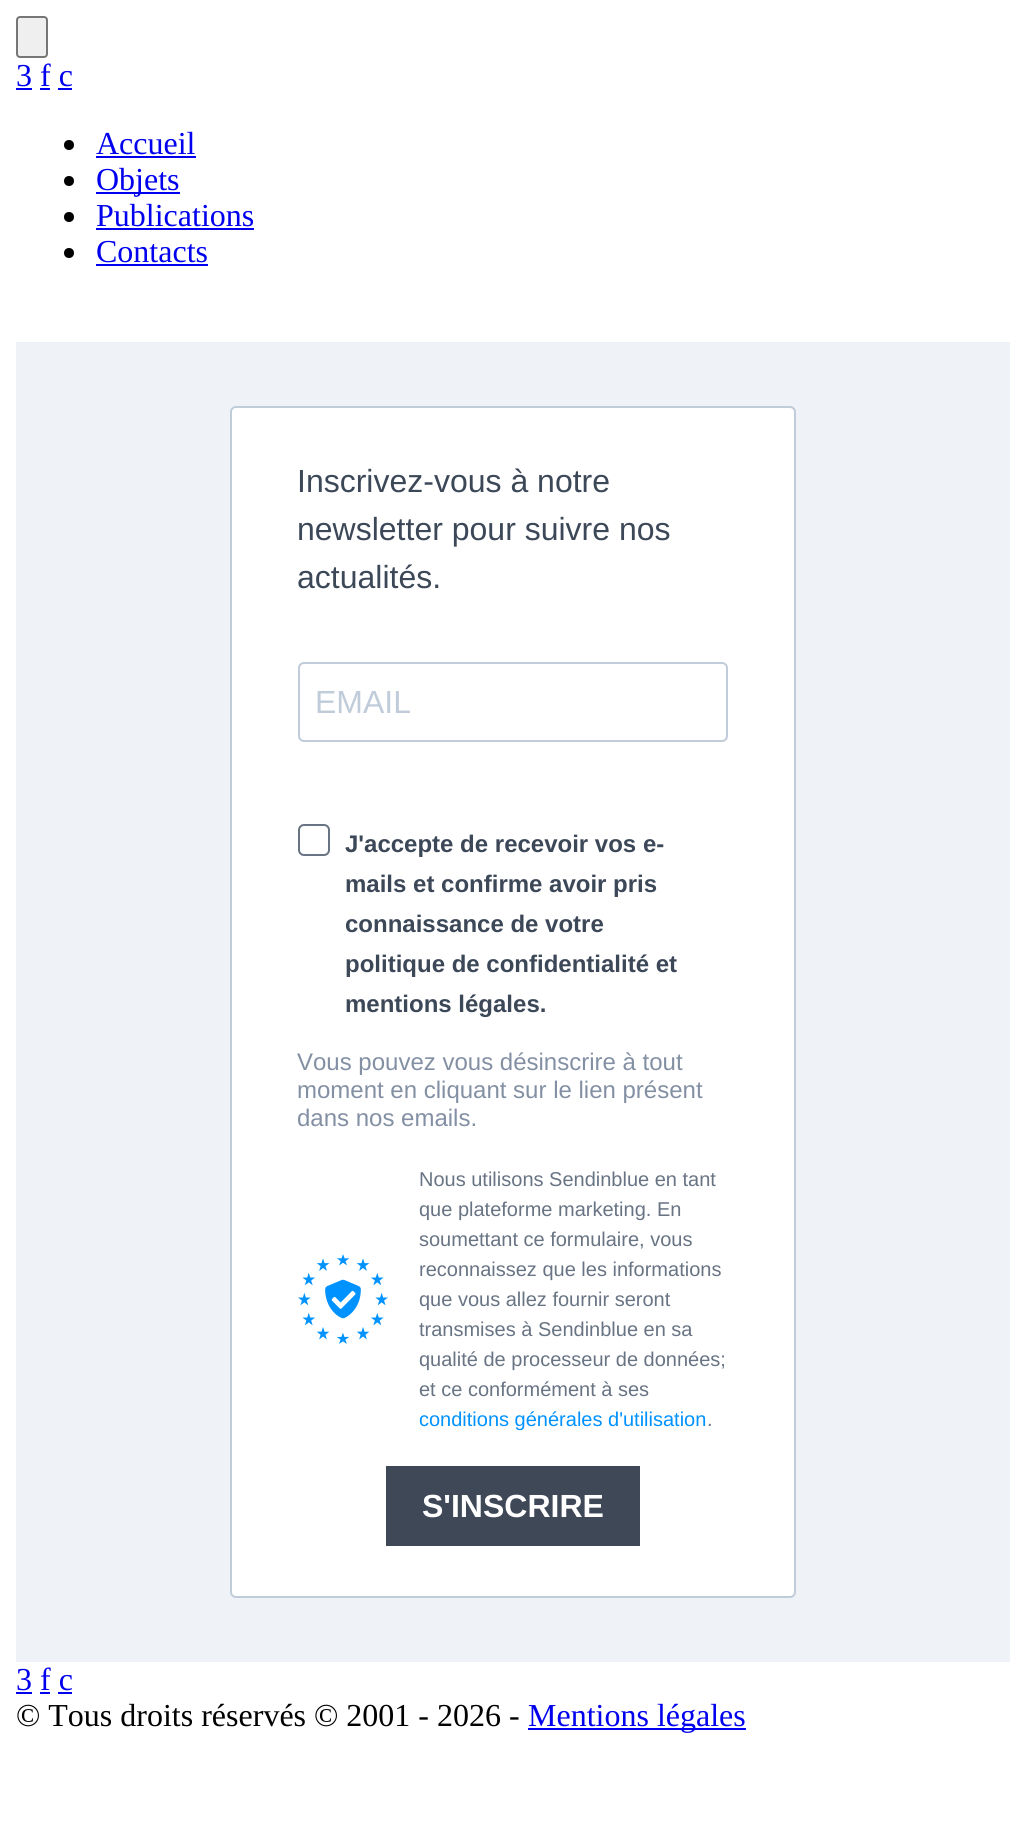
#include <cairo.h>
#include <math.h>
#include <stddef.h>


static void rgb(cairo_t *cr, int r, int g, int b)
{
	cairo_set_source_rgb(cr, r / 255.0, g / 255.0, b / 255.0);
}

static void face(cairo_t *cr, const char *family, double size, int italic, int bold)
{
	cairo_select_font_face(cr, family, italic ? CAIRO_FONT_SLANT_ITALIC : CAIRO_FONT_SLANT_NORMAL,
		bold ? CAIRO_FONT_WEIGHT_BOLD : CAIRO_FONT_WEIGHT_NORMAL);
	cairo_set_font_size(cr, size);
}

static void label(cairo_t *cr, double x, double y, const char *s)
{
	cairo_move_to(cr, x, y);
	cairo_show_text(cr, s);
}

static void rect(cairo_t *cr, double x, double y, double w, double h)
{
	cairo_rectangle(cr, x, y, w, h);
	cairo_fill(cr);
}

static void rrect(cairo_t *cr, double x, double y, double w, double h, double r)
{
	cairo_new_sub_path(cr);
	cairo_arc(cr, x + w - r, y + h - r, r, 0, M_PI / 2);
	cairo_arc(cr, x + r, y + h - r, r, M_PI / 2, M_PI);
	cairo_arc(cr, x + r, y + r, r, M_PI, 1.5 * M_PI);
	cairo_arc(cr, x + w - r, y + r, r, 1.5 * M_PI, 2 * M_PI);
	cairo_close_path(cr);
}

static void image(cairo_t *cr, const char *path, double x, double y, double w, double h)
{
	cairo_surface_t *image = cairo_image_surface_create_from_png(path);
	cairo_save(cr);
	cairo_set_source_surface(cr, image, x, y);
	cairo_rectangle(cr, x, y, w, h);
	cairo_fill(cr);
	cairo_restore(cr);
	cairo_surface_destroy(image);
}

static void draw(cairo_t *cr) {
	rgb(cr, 255, 255, 255);
	cairo_paint(cr);
	rgb(cr, 239, 239, 239);
	rrect(cr, 17, 17, 30, 40, 3);
	cairo_fill_preserve(cr);
	rgb(cr, 118, 118, 118);
	cairo_stroke(cr);
	face(cr, "Liberation Serif", 32, 0, 0);
	rgb(cr, 0, 0, 238);
	label(cr, 16, 86, "3 f c");
	rect(cr, 16, 88, 16, 2);
	rect(cr, 40, 88, 10, 2);
	rect(cr, 58, 88, 14, 2);
	rgb(cr, 0, 0, 0);
	cairo_new_path(cr);
	cairo_arc(cr, 69, 145, 5, 0, 2 * M_PI);
	cairo_fill(cr);
	rgb(cr, 0, 0, 238);
	label(cr, 96, 154, "Accueil");
	rect(cr, 96, 156, 100, 2);
	rgb(cr, 0, 0, 0);
	cairo_new_path(cr);
	cairo_arc(cr, 69, 181, 5, 0, 2 * M_PI);
	cairo_fill(cr);
	rgb(cr, 0, 0, 238);
	rect(cr, 96, 192, 84, 2);
	label(cr, 96, 190, "Objets");
	rgb(cr, 0, 0, 0);
	cairo_new_path(cr);
	cairo_arc(cr, 69, 217, 5, 0, 2 * M_PI);
	cairo_fill(cr);
	rgb(cr, 0, 0, 238);
	label(cr, 96, 226, "Publications");
	rect(cr, 96, 228, 158, 2);
	rgb(cr, 0, 0, 0);
	cairo_new_path(cr);
	cairo_arc(cr, 69, 253, 5, 0, 2 * M_PI);
	cairo_fill(cr);
	rgb(cr, 0, 0, 238);
	label(cr, 96, 262, "Contacts");
	rect(cr, 96, 264, 112, 2);
	rgb(cr, 239, 242, 247);
	rect(cr, 16, 342, 994, 1320);
	rgb(cr, 255, 255, 255);
	rrect(cr, 231, 407, 564, 1190, 5);
	cairo_fill_preserve(cr);
	rgb(cr, 192, 204, 217);
	cairo_stroke(cr);
	face(cr, "Liberation Sans", 32, 0, 0);
	rgb(cr, 60, 72, 88);
	label(cr, 297, 492, "Inscrivez-vous à notre");
	label(cr, 297, 540, "newsletter pour suivre nos");
	label(cr, 297, 588, "actualités.");
	rrect(cr, 299, 663, 428, 78, 5);
	rgb(cr, 192, 204, 218);
	cairo_stroke(cr);
	label(cr, 315, 713, "EMAIL");
	rrect(cr, 299, 825, 30, 30, 5);
	rgb(cr, 104, 116, 132);
	cairo_stroke(cr);
	face(cr, "Liberation Sans", 24, 0, 1);
	rgb(cr, 60, 72, 88);
	label(cr, 345, 852, "J'accepte de recevoir vos e-");
	label(cr, 345, 892, "mails et confirme avoir pris");
	label(cr, 345, 932, "connaissance de votre");
	label(cr, 345, 972, "politique de confidentialité et");
	label(cr, 345, 1012, "mentions légales.");
	face(cr, "Liberation Sans", 24, 0, 0);
	rgb(cr, 131, 144, 164);
	label(cr, 297, 1070, "Vous pouvez vous désinscrire à tout");
	label(cr, 297, 1098, "moment en cliquant sur le lien présent");
	label(cr, 297, 1126, "dans nos emails.");
	image(cr, "image0.png", 298, 1254, 90, 90);
	face(cr, "Liberation Sans", 20, 0, 0);
	rgb(cr, 104, 116, 132);
	label(cr, 419, 1186, "Nous utilisons Sendinblue en tant");
	label(cr, 419, 1216, "que plateforme marketing. En");
	label(cr, 419, 1246, "soumettant ce formulaire, vous");
	label(cr, 419, 1276, "reconnaissez que les informations");
	label(cr, 419, 1306, "que vous allez fournir seront");
	label(cr, 419, 1336, "transmises à Sendinblue en sa");
	label(cr, 419, 1366, "qualité de processeur de données;");
	label(cr, 419, 1396, "et ce conformément à ses");
	rgb(cr, 0, 146, 255);
	label(cr, 419, 1426, "conditions générales d'utilisation");
	rgb(cr, 104, 116, 132);
	label(cr, 707, 1426, ".");
	rgb(cr, 62, 72, 87);
	rect(cr, 386, 1466, 254, 80);
	face(cr, "Liberation Sans", 32, 0, 1);
	rgb(cr, 255, 255, 255);
	label(cr, 422, 1517, "S'INSCRIRE");
	face(cr, "Liberation Serif", 32, 0, 0);
	rgb(cr, 0, 0, 238);
	label(cr, 16, 1690, "3 f c");
	rect(cr, 16, 1692, 16, 2);
	rect(cr, 40, 1692, 10, 2);
	rect(cr, 58, 1692, 14, 2);
	rgb(cr, 0, 0, 0);
	label(cr, 16, 1726, "© Tous droits réservés © 2001 - 2026 -");
	rgb(cr, 0, 0, 238);
	rect(cr, 528, 1728, 218, 2);
	label(cr, 528, 1726, "Mentions légales");
}

int main(void) {
	cairo_surface_t *surface = cairo_image_surface_create(CAIRO_FORMAT_RGB24, 1026, 1840);
	cairo_t *cr = cairo_create(surface);
	cairo_font_options_t *options = cairo_font_options_create();
	cairo_font_options_set_hint_metrics(options, CAIRO_HINT_METRICS_OFF);
	cairo_font_options_set_hint_style(options, CAIRO_HINT_STYLE_NONE);
	cairo_set_font_options(cr, options);
	cairo_set_miter_limit(cr, 4);
	draw(cr);
	cairo_surface_write_to_png(surface, "render.png");
	cairo_font_options_destroy(options);
	cairo_destroy(cr);
	cairo_surface_destroy(surface);
	return 0;
}
